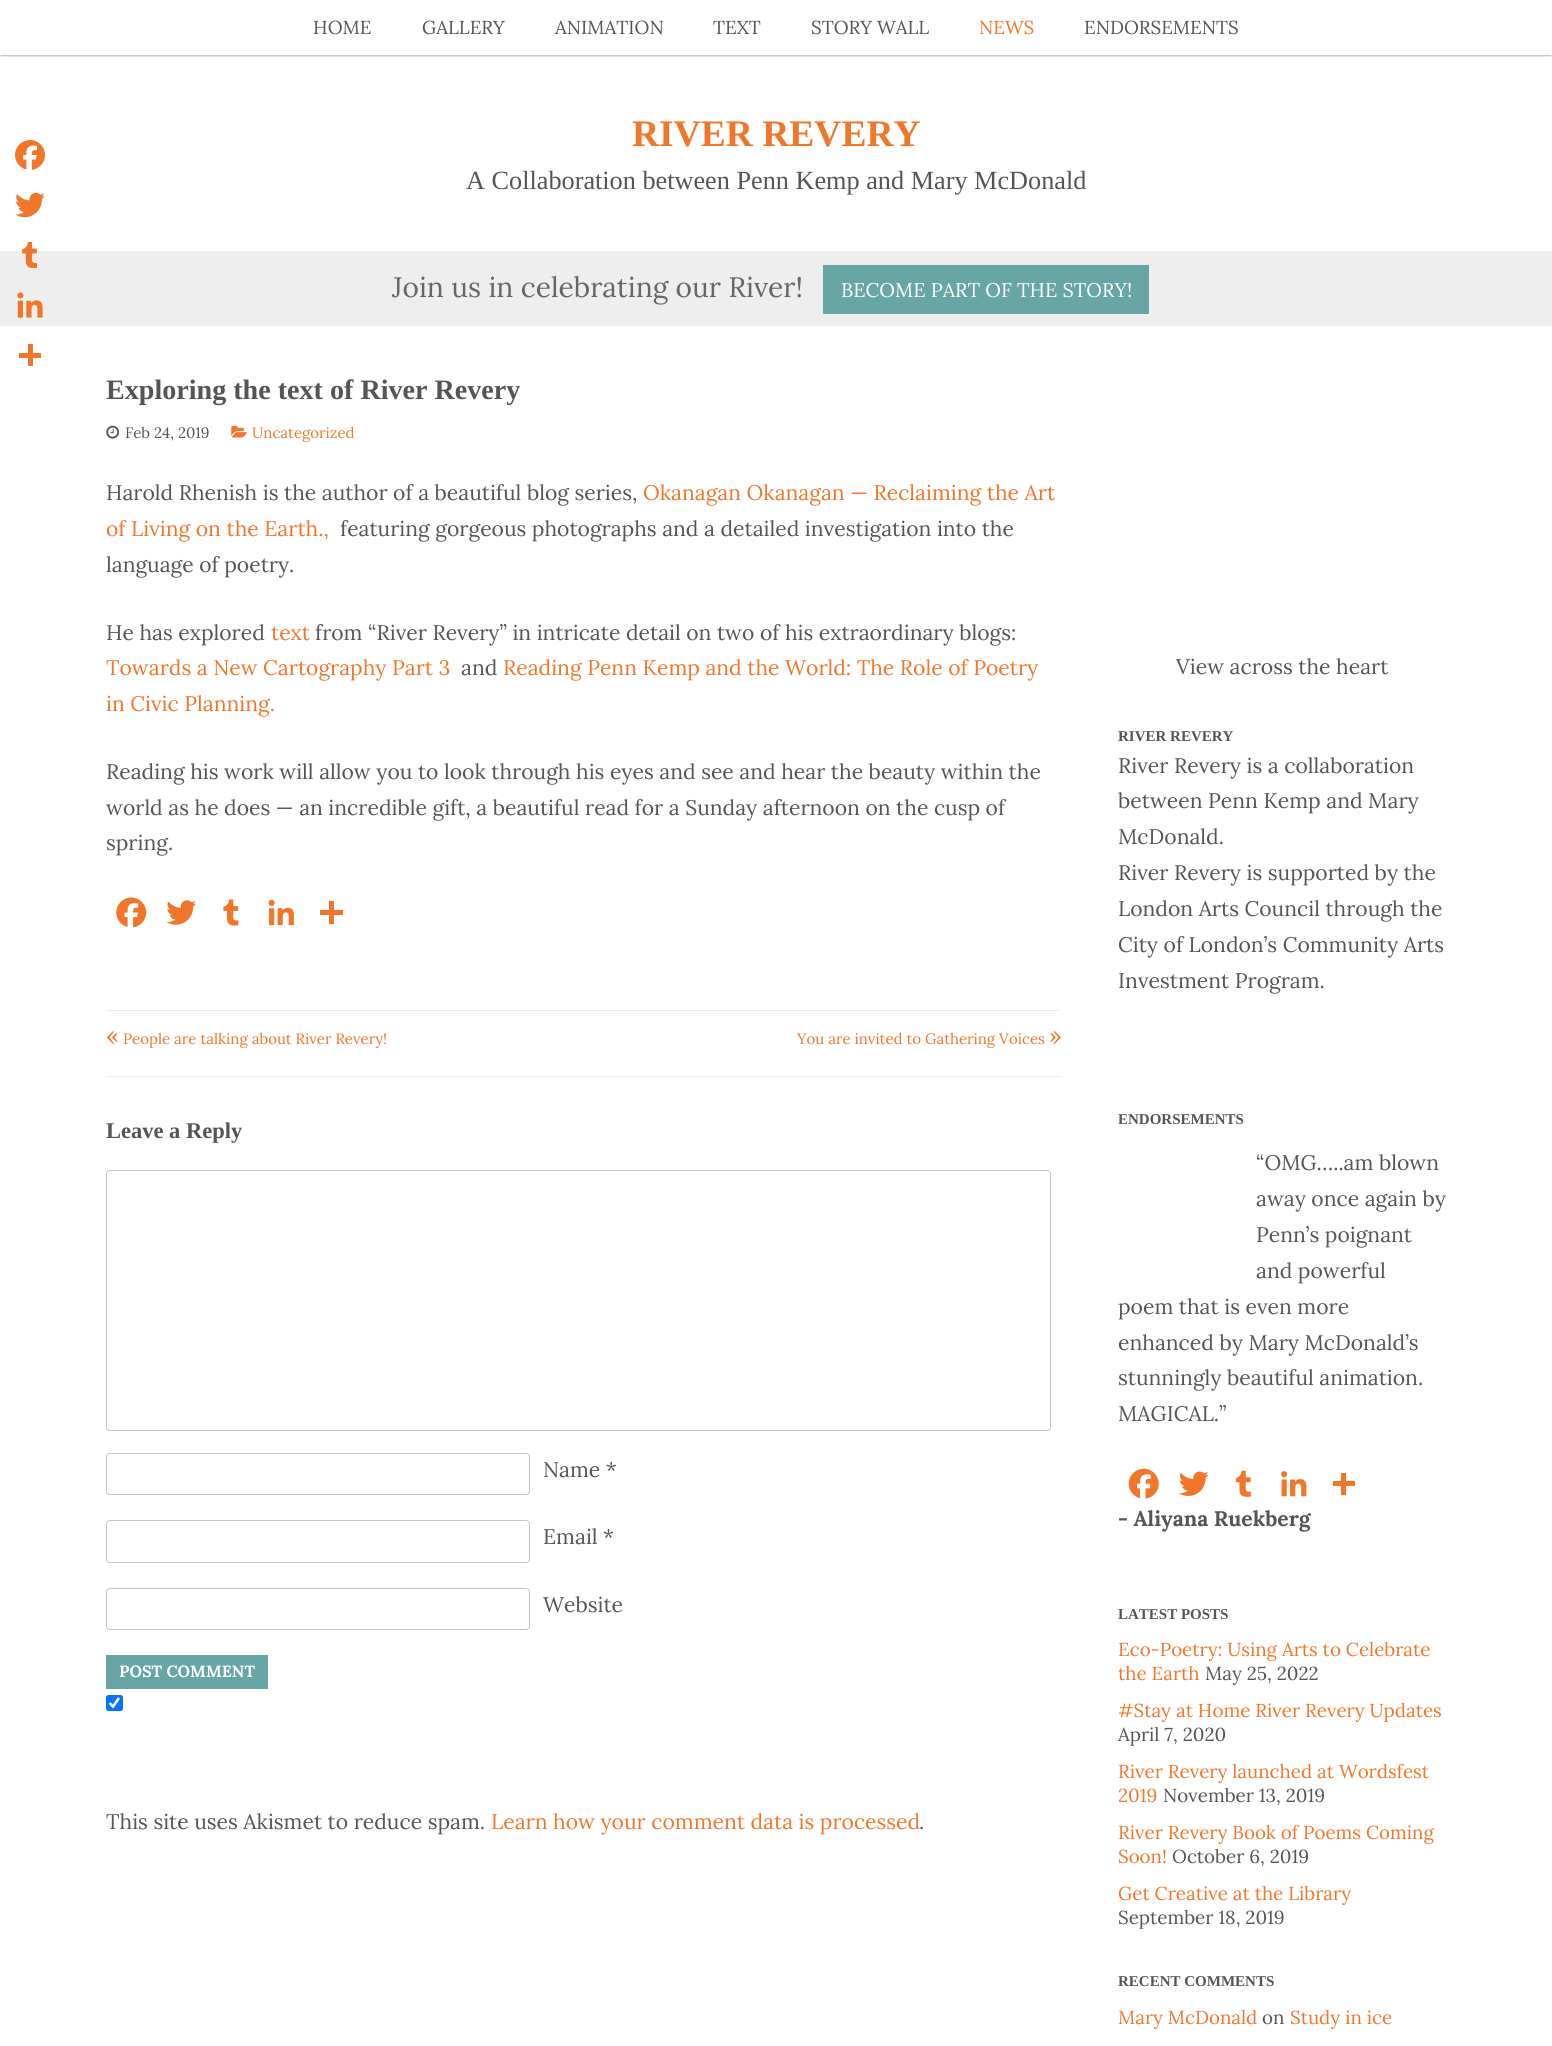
#include <cairo.h>
#include <math.h>
#include <stddef.h>


static void rgb(cairo_t *cr, int r, int g, int b)
{
	cairo_set_source_rgb(cr, r / 255.0, g / 255.0, b / 255.0);
}

static void face(cairo_t *cr, const char *family, double size, int italic, int bold)
{
	cairo_select_font_face(cr, family, italic ? CAIRO_FONT_SLANT_ITALIC : CAIRO_FONT_SLANT_NORMAL,
		bold ? CAIRO_FONT_WEIGHT_BOLD : CAIRO_FONT_WEIGHT_NORMAL);
	cairo_set_font_size(cr, size);
}

static void label(cairo_t *cr, double x, double y, const char *s)
{
	cairo_move_to(cr, x, y);
	cairo_show_text(cr, s);
}

static void rect(cairo_t *cr, double x, double y, double w, double h)
{
	cairo_rectangle(cr, x, y, w, h);
	cairo_fill(cr);
}

static void rrect(cairo_t *cr, double x, double y, double w, double h, double r)
{
	cairo_new_sub_path(cr);
	cairo_arc(cr, x + w - r, y + h - r, r, 0, M_PI / 2);
	cairo_arc(cr, x + r, y + h - r, r, M_PI / 2, M_PI);
	cairo_arc(cr, x + r, y + r, r, M_PI, 1.5 * M_PI);
	cairo_arc(cr, x + w - r, y + r, r, 1.5 * M_PI, 2 * M_PI);
	cairo_close_path(cr);
}

static void soft_shadow(cairo_t *cr, double x, double y, double w, double h, double r, double blur, double alpha)
{
	cairo_push_group_with_content(cr, CAIRO_CONTENT_ALPHA);
	cairo_set_operator(cr, CAIRO_OPERATOR_SOURCE);
	for (int i = 15; i >= -15 && fmin(w, h) + blur * i / 3 > 0; i -= 2) {
		double e = blur * i / 6;
		cairo_set_source_rgba(cr, 0, 0, 0, alpha * erfc((i - 1) / 8.5) / 2);
		rrect(cr, x - e, y - e, w + 2 * e, h + 2 * e, fmax(0, fmin(r + e + blur * .6, fmin(w, h) / 2 + e)));
		cairo_fill(cr);
	}
	cairo_pattern_t *soft = cairo_pop_group(cr);
	cairo_mask(cr, soft);
	cairo_pattern_destroy(soft);
}

static void image(cairo_t *cr, const char *path, double x, double y, double w, double h)
{
	cairo_surface_t *image = cairo_image_surface_create_from_png(path);
	cairo_save(cr);
	cairo_set_source_surface(cr, image, x, y);
	cairo_rectangle(cr, x, y, w, h);
	cairo_fill(cr);
	cairo_restore(cr);
	cairo_surface_destroy(image);
}

static void draw(cairo_t *cr) {
	rgb(cr, 255, 255, 255);
	cairo_paint(cr);
	image(cr, "image0.png", 15, 140, 30, 30);
	image(cr, "image1.png", 15, 192, 30, 26);
	rgb(cr, 238, 238, 238);
	rect(cr, 0, 251, 1552, 75);
	image(cr, "image2.png", 22, 241, 16, 28);
	image(cr, "image3.png", 17, 292, 26, 26);
	rgb(cr, 242, 118, 41);
	rect(cr, 28, 344, 5, 22);
	rect(cr, 19, 353, 22, 5);
	cairo_save(cr);
	cairo_rectangle(cr, 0, 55, 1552, 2);
	cairo_clip(cr);
	rgb(cr, 0, 0, 0);
	soft_shadow(cr, 1, 4, 1550, 52, 0, 1, 0.3);
	cairo_restore(cr);
	face(cr, "Lora", 18.75, 0, 0);
	rgb(cr, 85, 85, 85);
	label(cr, 313, 34, "HOME");
	label(cr, 422, 34, "GALLERY");
	label(cr, 555, 34, "ANIMATION");
	label(cr, 713, 34, "TEXT");
	label(cr, 811, 34, "STORY WALL");
	rgb(cr, 242, 118, 41);
	label(cr, 979, 34, "NEWS");
	rgb(cr, 85, 85, 85);
	label(cr, 1084, 34, "ENDORSEMENTS");
	face(cr, "Liberation Serif", 37.5, 0, 1);
	rgb(cr, 242, 118, 41);
	label(cr, 632, 146, "RIVER REVERY");
	face(cr, "Liberation Serif", 26.25, 0, 0);
	rgb(cr, 85, 85, 85);
	label(cr, 466, 189, "A Collaboration between Penn Kemp and Mary McDonald");
	face(cr, "Lora", 28.1, 0, 0);
	rgb(cr, 102, 102, 102);
	label(cr, 392, 297, "Join us in celebrating our River!");
	rgb(cr, 104, 166, 166);
	rect(cr, 823, 265, 326, 49);
	face(cr, "Lora", 19.75, 0, 0);
	rgb(cr, 255, 255, 255);
	label(cr, 841, 297, "BECOME PART OF THE STORY!");
	face(cr, "Liberation Serif", 28.1, 0, 1);
	rgb(cr, 85, 85, 85);
	label(cr, 106, 399, "Exploring the text of River Revery");
	image(cr, "image4.png", 106, 425, 14, 14);
	face(cr, "Lora", 15, 0, 0);
	label(cr, 125, 438, "Feb 24, 2019");
	image(cr, "image5.png", 231, 425, 16, 13);
	rgb(cr, 242, 118, 41);
	label(cr, 252, 438, "Uncategorized");
	face(cr, "Lora", 21.1, 0, 0);
	rgb(cr, 85, 85, 85);
	label(cr, 106, 500, "Harold Rhenish is the author of a beautiful blog series,");
	rgb(cr, 242, 118, 41);
	label(cr, 643, 500, "Okanagan Okanagan — Reclaiming the Art");
	label(cr, 106, 536, "of Living on the Earth.,");
	rgb(cr, 85, 85, 85);
	label(cr, 340, 536, "featuring gorgeous photographs and a detailed investigation into the");
	label(cr, 106, 572, "language of poetry.");
	label(cr, 106, 640, "He has explored");
	rgb(cr, 242, 118, 41);
	label(cr, 271, 640, "text");
	rgb(cr, 85, 85, 85);
	label(cr, 315, 640, "from “River Revery” in intricate detail on two of his extraordinary blogs:");
	rgb(cr, 242, 118, 41);
	label(cr, 106, 675, "Towards a New Cartography Part 3");
	rgb(cr, 85, 85, 85);
	label(cr, 461, 675, "and");
	rgb(cr, 242, 118, 41);
	label(cr, 503, 675, "Reading Penn Kemp and the World: The Role of Poetry");
	label(cr, 106, 711, "in Civic Planning.");
	rgb(cr, 85, 85, 85);
	label(cr, 106, 779, "Reading his work will allow you to look through his eyes and see and hear the beauty within the");
	label(cr, 106, 815, "world as he does — an incredible gift, a beautiful read for a Sunday afternoon on the cusp of");
	label(cr, 106, 850, "spring.");
	image(cr, "image6.png", 116, 897, 31, 31);
	image(cr, "image7.png", 166, 900, 31, 25);
	image(cr, "image8.png", 223, 899, 16, 27);
	image(cr, "image9.png", 268, 899, 26, 27);
	rgb(cr, 242, 118, 41);
	rect(cr, 329, 901, 5, 23);
	rect(cr, 320, 910, 23, 5);
	rgb(cr, 237, 235, 235);
	rect(cr, 106, 1010, 955, 1);
	face(cr, "Lora", 24, 0, 0);
	rgb(cr, 242, 118, 41);
	label(cr, 106, 1044, "«");
	face(cr, "Lora", 15, 0, 0);
	label(cr, 123, 1044, "People are talking about River Revery!");
	label(cr, 797, 1044, "You are invited to Gathering Voices");
	face(cr, "Lora", 24, 0, 0);
	label(cr, 1049, 1044, "»");
	rgb(cr, 237, 235, 235);
	rect(cr, 106, 1076, 955, 1);
	face(cr, "Liberation Serif", 22.5, 0, 1);
	rgb(cr, 85, 85, 85);
	label(cr, 106, 1138, "Leave a Reply");
	rrect(cr, 106.5, 1170.5, 944, 260, 3.5);
	rgb(cr, 201, 194, 196);
	cairo_set_line_width(cr, 1);
	cairo_stroke(cr);
	rrect(cr, 106.5, 1453.5, 423, 41, 3.5);
	cairo_stroke(cr);
	face(cr, "Lora", 21.1, 0, 0);
	rgb(cr, 85, 85, 85);
	label(cr, 543, 1477, "Name *");
	rrect(cr, 106.5, 1520.5, 423, 42, 3.5);
	rgb(cr, 201, 194, 196);
	cairo_stroke(cr);
	rgb(cr, 85, 85, 85);
	label(cr, 543, 1544, "Email *");
	rrect(cr, 106.5, 1588.5, 423, 41, 3.5);
	rgb(cr, 201, 194, 196);
	cairo_stroke(cr);
	rgb(cr, 85, 85, 85);
	label(cr, 543, 1612, "Website");
	rgb(cr, 104, 166, 166);
	rect(cr, 106, 1655, 162, 34);
	face(cr, "Lora", 16.25, 0, 1);
	rgb(cr, 255, 255, 255);
	label(cr, 119, 1677, "POST COMMENT");
	rgb(cr, 0, 117, 255);
	rrect(cr, 106, 1695, 17, 16, 2.5);
	cairo_fill(cr);
	cairo_new_path(cr);
	cairo_move_to(cr, 109.5, 1703);
	cairo_line_to(cr, 113, 1706.5);
	cairo_line_to(cr, 119, 1698);
	rgb(cr, 255, 255, 255);
	cairo_set_line_width(cr, 2.6);
	cairo_stroke(cr);
	face(cr, "Lora", 21.1, 0, 0);
	rgb(cr, 85, 85, 85);
	label(cr, 106, 1829, "This site uses Akismet to reduce spam.");
	rgb(cr, 242, 118, 41);
	label(cr, 491, 1829, "Learn how your comment data is processed");
	rgb(cr, 85, 85, 85);
	label(cr, 919, 1829, ".");
	label(cr, 1176, 674, "View across the heart");
	face(cr, "Liberation Serif", 15, 0, 1);
	label(cr, 1118, 741, "RIVER REVERY");
	face(cr, "Lora", 21.1, 0, 0);
	label(cr, 1118, 773, "River Revery is a collaboration");
	label(cr, 1118, 808, "between Penn Kemp and Mary");
	label(cr, 1118, 844, "McDonald.");
	label(cr, 1118, 880, "River Revery is supported by the");
	label(cr, 1118, 916, "London Arts Council through the");
	label(cr, 1118, 952, "City of London’s Community Arts");
	label(cr, 1118, 988, "Investment Program.");
	face(cr, "Liberation Serif", 15, 0, 1);
	label(cr, 1118, 1124, "ENDORSEMENTS");
	face(cr, "Lora", 21.1, 0, 0);
	label(cr, 1256, 1170, "“OMG…..am blown");
	label(cr, 1256, 1206, "away once again by");
	label(cr, 1256, 1242, "Penn’s poignant");
	label(cr, 1256, 1278, "and powerful");
	label(cr, 1118, 1314, "poem that is even more");
	label(cr, 1118, 1350, "enhanced by Mary McDonald’s");
	label(cr, 1118, 1385, "stunningly beautiful animation.");
	label(cr, 1118, 1421, "MAGICAL.”");
	image(cr, "image10.png", 1128, 1468, 31, 31);
	image(cr, "image11.png", 1179, 1471, 30, 25);
	image(cr, "image12.png", 1235, 1470, 16, 27);
	image(cr, "image13.png", 1281, 1471, 26, 26);
	rgb(cr, 242, 118, 41);
	rect(cr, 1341, 1473, 5, 22);
	rect(cr, 1333, 1481, 22, 5);
	face(cr, "Lora", 21.1, 0, 1);
	rgb(cr, 85, 85, 85);
	label(cr, 1118, 1526, "- Aliyana Ruekberg");
	face(cr, "Liberation Serif", 15, 0, 1);
	label(cr, 1118, 1619, "LATEST POSTS");
	face(cr, "Lora", 18.75, 0, 0);
	rgb(cr, 242, 118, 41);
	label(cr, 1118, 1656, "Eco-Poetry: Using Arts to Celebrate");
	label(cr, 1118, 1680, "the Earth");
	rgb(cr, 85, 85, 85);
	label(cr, 1205, 1680, "May 25, 2022");
	rgb(cr, 242, 118, 41);
	label(cr, 1118, 1717, "#Stay at Home River Revery Updates");
	rgb(cr, 85, 85, 85);
	label(cr, 1118, 1741, "April 7, 2020");
	rgb(cr, 242, 118, 41);
	label(cr, 1118, 1778, "River Revery launched at Wordsfest");
	label(cr, 1118, 1802, "2019");
	rgb(cr, 85, 85, 85);
	label(cr, 1163, 1802, "November 13, 2019");
	rgb(cr, 242, 118, 41);
	label(cr, 1118, 1839, "River Revery Book of Poems Coming");
	label(cr, 1118, 1863, "Soon!");
	rgb(cr, 85, 85, 85);
	label(cr, 1172, 1863, "October 6, 2019");
	rgb(cr, 242, 118, 41);
	label(cr, 1118, 1900, "Get Creative at the Library");
	rgb(cr, 85, 85, 85);
	label(cr, 1118, 1924, "September 18, 2019");
	face(cr, "Liberation Serif", 15, 0, 1);
	label(cr, 1118, 1986, "RECENT COMMENTS");
	face(cr, "Lora", 18.75, 0, 0);
	rgb(cr, 242, 118, 41);
	label(cr, 1118, 2024, "Mary McDonald");
	rgb(cr, 85, 85, 85);
	label(cr, 1262, 2024, "on");
	rgb(cr, 242, 118, 41);
	label(cr, 1290, 2024, "Study in ice");
}

int main(void) {
	cairo_surface_t *surface = cairo_image_surface_create(CAIRO_FORMAT_RGB24, 1552, 2046);
	cairo_t *cr = cairo_create(surface);
	cairo_font_options_t *options = cairo_font_options_create();
	cairo_font_options_set_hint_metrics(options, CAIRO_HINT_METRICS_OFF);
	cairo_font_options_set_hint_style(options, CAIRO_HINT_STYLE_NONE);
	cairo_set_font_options(cr, options);
	cairo_set_miter_limit(cr, 4);
	draw(cr);
	cairo_surface_write_to_png(surface, "render.png");
	cairo_font_options_destroy(options);
	cairo_destroy(cr);
	cairo_surface_destroy(surface);
	return 0;
}
